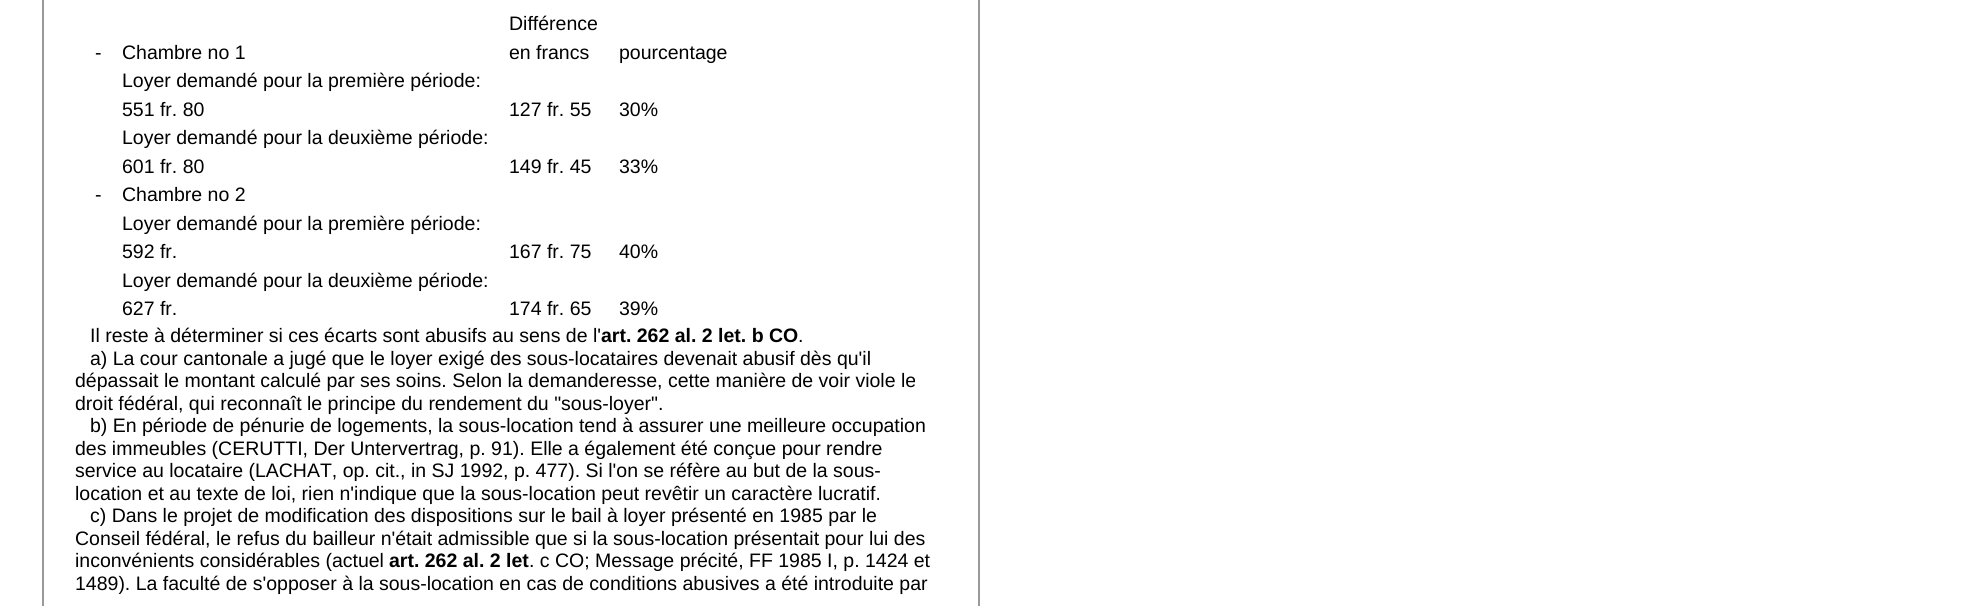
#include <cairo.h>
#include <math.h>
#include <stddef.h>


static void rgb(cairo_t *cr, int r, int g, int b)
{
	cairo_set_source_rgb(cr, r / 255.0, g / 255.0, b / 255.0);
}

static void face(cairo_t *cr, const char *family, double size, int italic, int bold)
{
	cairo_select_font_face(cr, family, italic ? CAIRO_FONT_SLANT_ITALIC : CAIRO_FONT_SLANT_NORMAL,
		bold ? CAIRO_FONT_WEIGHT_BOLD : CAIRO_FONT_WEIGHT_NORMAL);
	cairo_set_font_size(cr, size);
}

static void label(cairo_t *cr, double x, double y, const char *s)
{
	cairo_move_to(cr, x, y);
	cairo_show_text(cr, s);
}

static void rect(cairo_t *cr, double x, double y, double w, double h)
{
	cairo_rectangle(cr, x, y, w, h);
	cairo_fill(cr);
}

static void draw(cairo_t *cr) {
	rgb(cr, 255, 255, 255);
	cairo_paint(cr);
	rgb(cr, 153, 153, 153);
	rect(cr, 978, 0, 2, 606);
	rect(cr, 42, 0, 2, 606);
	face(cr, "Liberation Sans", 19.5, 0, 0);
	rgb(cr, 0, 0, 0);
	label(cr, 509, 30, "Différence");
	label(cr, 95, 59, "-");
	label(cr, 122, 59, "Chambre no 1");
	label(cr, 509, 59, "en francs");
	label(cr, 619, 59, "pourcentage");
	label(cr, 122, 87, "Loyer demandé pour la première période:");
	label(cr, 122, 116, "551 fr. 80");
	label(cr, 509, 116, "127 fr. 55");
	label(cr, 619, 116, "30%");
	label(cr, 122, 144, "Loyer demandé pour la deuxième période:");
	label(cr, 122, 173, "601 fr. 80");
	label(cr, 509, 173, "149 fr. 45");
	label(cr, 619, 173, "33%");
	label(cr, 95, 201, "-");
	label(cr, 122, 201, "Chambre no 2");
	label(cr, 122, 230, "Loyer demandé pour la première période:");
	label(cr, 122, 258, "592 fr.");
	label(cr, 509, 258, "167 fr. 75");
	label(cr, 619, 258, "40%");
	label(cr, 122, 287, "Loyer demandé pour la deuxième période:");
	label(cr, 122, 315, "627 fr.");
	label(cr, 509, 315, "174 fr. 65");
	label(cr, 619, 315, "39%");
	label(cr, 90, 342, "Il reste à déterminer si ces écarts sont abusifs au sens de l'");
	face(cr, "Liberation Sans", 19.5, 0, 1);
	label(cr, 601, 342, "art. 262 al. 2 let. b CO");
	face(cr, "Liberation Sans", 19.5, 0, 0);
	label(cr, 798, 342, ".");
	label(cr, 90, 365, "a) La cour cantonale a jugé que le loyer exigé des sous-locataires devenait abusif dès qu'il");
	label(cr, 75, 387, "dépassait le montant calculé par ses soins. Selon la demanderesse, cette manière de voir viole le");
	label(cr, 75, 410, "droit fédéral, qui reconnaît le principe du rendement du \"sous-loyer\".");
	label(cr, 90, 432, "b) En période de pénurie de logements, la sous-location tend à assurer une meilleure occupation");
	label(cr, 75, 455, "des immeubles (CERUTTI, Der Untervertrag, p. 91). Elle a également été conçue pour rendre");
	label(cr, 75, 477, "service au locataire (LACHAT, op. cit., in SJ 1992, p. 477). Si l'on se réfère au but de la sous-");
	label(cr, 75, 500, "location et au texte de loi, rien n'indique que la sous-location peut revêtir un caractère lucratif.");
	label(cr, 90, 522, "c) Dans le projet de modification des dispositions sur le bail à loyer présenté en 1985 par le");
	label(cr, 75, 545, "Conseil fédéral, le refus du bailleur n'était admissible que si la sous-location présentait pour lui des");
	label(cr, 75, 567, "inconvénients considérables (actuel");
	face(cr, "Liberation Sans", 19.5, 0, 1);
	label(cr, 389, 567, "art. 262 al. 2 let");
	face(cr, "Liberation Sans", 19.5, 0, 0);
	label(cr, 529, 567, ". c CO; Message précité, FF 1985 I, p. 1424 et");
	label(cr, 75, 590, "1489). La faculté de s'opposer à la sous-location en cas de conditions abusives a été introduite par");
}

int main(void) {
	cairo_surface_t *surface = cairo_image_surface_create(CAIRO_FORMAT_RGB24, 1970, 606);
	cairo_t *cr = cairo_create(surface);
	cairo_font_options_t *options = cairo_font_options_create();
	cairo_font_options_set_hint_metrics(options, CAIRO_HINT_METRICS_OFF);
	cairo_font_options_set_hint_style(options, CAIRO_HINT_STYLE_NONE);
	cairo_set_font_options(cr, options);
	cairo_set_miter_limit(cr, 4);
	draw(cr);
	cairo_surface_write_to_png(surface, "render.png");
	cairo_font_options_destroy(options);
	cairo_destroy(cr);
	cairo_surface_destroy(surface);
	return 0;
}
